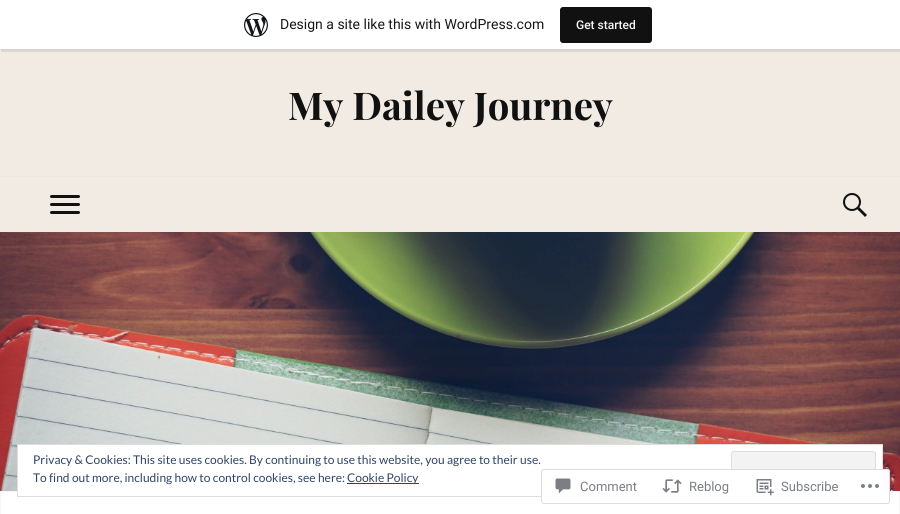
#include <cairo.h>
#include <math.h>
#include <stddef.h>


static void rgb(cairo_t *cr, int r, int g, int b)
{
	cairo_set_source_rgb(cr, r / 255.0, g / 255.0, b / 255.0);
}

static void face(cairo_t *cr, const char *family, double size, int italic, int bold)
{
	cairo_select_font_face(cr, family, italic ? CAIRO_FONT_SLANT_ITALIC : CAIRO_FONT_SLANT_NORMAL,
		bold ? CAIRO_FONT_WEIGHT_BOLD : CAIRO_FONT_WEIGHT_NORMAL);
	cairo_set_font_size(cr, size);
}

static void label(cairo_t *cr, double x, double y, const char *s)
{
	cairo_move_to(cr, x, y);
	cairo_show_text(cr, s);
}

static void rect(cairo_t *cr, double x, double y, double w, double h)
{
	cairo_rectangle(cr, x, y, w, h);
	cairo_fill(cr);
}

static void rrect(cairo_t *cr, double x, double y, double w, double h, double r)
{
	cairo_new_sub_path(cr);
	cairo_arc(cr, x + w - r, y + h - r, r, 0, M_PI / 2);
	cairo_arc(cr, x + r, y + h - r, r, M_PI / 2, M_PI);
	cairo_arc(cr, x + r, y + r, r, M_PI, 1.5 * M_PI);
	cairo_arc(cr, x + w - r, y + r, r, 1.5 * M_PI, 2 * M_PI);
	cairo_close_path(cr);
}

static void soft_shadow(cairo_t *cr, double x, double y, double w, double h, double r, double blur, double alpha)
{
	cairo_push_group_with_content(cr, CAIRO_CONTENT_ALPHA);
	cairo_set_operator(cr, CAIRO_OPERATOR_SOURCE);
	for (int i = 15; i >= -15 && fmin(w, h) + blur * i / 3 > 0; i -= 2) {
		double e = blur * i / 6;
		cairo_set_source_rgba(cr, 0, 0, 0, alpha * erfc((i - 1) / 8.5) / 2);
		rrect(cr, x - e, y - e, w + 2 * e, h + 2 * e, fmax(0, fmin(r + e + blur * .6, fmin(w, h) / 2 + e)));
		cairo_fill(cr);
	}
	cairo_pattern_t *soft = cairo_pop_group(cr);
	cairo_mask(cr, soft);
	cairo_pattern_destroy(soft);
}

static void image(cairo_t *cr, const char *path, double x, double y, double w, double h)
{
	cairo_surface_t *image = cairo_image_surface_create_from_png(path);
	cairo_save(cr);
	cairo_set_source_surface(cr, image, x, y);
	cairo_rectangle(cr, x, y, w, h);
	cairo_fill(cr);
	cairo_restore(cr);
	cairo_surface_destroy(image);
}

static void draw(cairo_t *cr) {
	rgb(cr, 241, 235, 227);
	cairo_paint(cr);
	rgb(cr, 0, 0, 0);
	soft_shadow(cr, 0, 1, 900, 49, 0, 1, 0.05);
	cairo_set_source_rgba(cr, 0, 0, 0, 0.08);
	cairo_new_path(cr);
	cairo_move_to(cr, 1, 49);
	cairo_line_to(cr, 1, 52);
	cairo_line_to(cr, 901, 52);
	cairo_line_to(cr, 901, 3);
	cairo_line_to(cr, 900, 3);
	cairo_line_to(cr, 900, 49);
	cairo_close_path(cr);
	cairo_fill(cr);
	rgb(cr, 255, 255, 255);
	rect(cr, 0, 0, 900, 49);
	image(cr, "image0.png", 244, 13, 24, 24);
	face(cr, "Roboto", 14, 0, 0);
	rgb(cr, 23, 23, 23);
	label(cr, 280, 29, "Design a site like this with WordPress.com");
	rgb(cr, 17, 17, 17);
	rrect(cr, 560, 7, 92, 36, 3);
	cairo_fill(cr);
	face(cr, "Roboto Medium", 12, 0, 0);
	rgb(cr, 246, 247, 247);
	label(cr, 576, 29, "Get started");
	face(cr, "Playfair Display", 38.25, 0, 1);
	rgb(cr, 17, 17, 17);
	label(cr, 288, 120, "My Dailey Journey");
	rgb(cr, 235, 231, 225);
	rect(cr, 0, 176, 900, 1);
	rgb(cr, 17, 17, 17);
	rrect(cr, 50, 195, 30, 3, 1.5);
	cairo_fill(cr);
	rrect(cr, 50, 203, 30, 3, 1.5);
	cairo_fill(cr);
	rrect(cr, 50, 211, 30, 3, 1.5);
	cairo_fill(cr);
	image(cr, "image1.png", 843, 193, 24, 24);
	image(cr, "image2.png", 0, 232, 900, 259);
	rgb(cr, 255, 255, 255);
	rect(cr, 0, 491, 900, 23);
	rgb(cr, 245, 245, 245);
	cairo_new_path(cr);
	cairo_move_to(cr, 0, 491);
	cairo_line_to(cr, 900, 491);
	cairo_line_to(cr, 899, 492);
	cairo_line_to(cr, 1, 492);
	cairo_close_path(cr);
	cairo_fill(cr);
	cairo_set_source_rgba(cr, 0.867, 0.867, 0.867, 0.3);
	cairo_new_path(cr);
	cairo_move_to(cr, 900, 491);
	cairo_line_to(cr, 900, 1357);
	cairo_line_to(cr, 899, 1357);
	cairo_line_to(cr, 899, 492);
	cairo_close_path(cr);
	cairo_fill(cr);
	cairo_new_path(cr);
	cairo_move_to(cr, 0, 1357);
	cairo_line_to(cr, 0, 491);
	cairo_line_to(cr, 1, 492);
	cairo_line_to(cr, 1, 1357);
	cairo_close_path(cr);
	cairo_fill(cr);
	rgb(cr, 255, 255, 255);
	rect(cr, 18, 445, 864, 47);
	cairo_rectangle(cr, 17.5, 444.5, 865, 52);
	rgb(cr, 222, 222, 222);
	cairo_set_line_width(cr, 1);
	cairo_stroke(cr);
	face(cr, "Lato", 12, 0, 0);
	rgb(cr, 46, 68, 103);
	label(cr, 33, 464, "Privacy & Cookies: This site uses cookies. By continuing to use this website, you agree to their use.");
	rgb(cr, 243, 243, 243);
	rrect(cr, 731.5, 451.5, 144, 38, 2.5);
	cairo_fill_preserve(cr);
	rgb(cr, 222, 222, 222);
	cairo_stroke(cr);
	rgb(cr, 46, 68, 103);
	label(cr, 33, 482, "To find out more, including how to control cookies, see here:");
	rect(cr, 347, 483, 72, 1);
	label(cr, 347, 482, "Cookie Policy");
	cairo_set_source_rgba(cr, 1, 1, 1, 0.98);
	rrect(cr, 541, 469, 349, 35, 3);
	cairo_fill(cr);
	rrect(cr, 541.5, 469.5, 348, 34, 2.5);
	cairo_set_source_rgba(cr, 0.863, 0.863, 0.871, 0.98);
	cairo_stroke(cr);
	image(cr, "image3.png", 555, 478, 16, 16);
	face(cr, "Roboto", 13, 0, 0);
	rgb(cr, 123, 127, 133);
	label(cr, 580, 491, "Comment");
	image(cr, "image4.png", 662, 479, 20, 14);
	label(cr, 689, 491, "Reblog");
	image(cr, "image5.png", 756, 479, 18, 17);
	label(cr, 781, 491, "Subscribe");
	image(cr, "image6.png", 861, 484, 18, 4);
}

int main(void) {
	cairo_surface_t *surface = cairo_image_surface_create(CAIRO_FORMAT_RGB24, 900, 514);
	cairo_t *cr = cairo_create(surface);
	cairo_font_options_t *options = cairo_font_options_create();
	cairo_font_options_set_hint_metrics(options, CAIRO_HINT_METRICS_OFF);
	cairo_font_options_set_hint_style(options, CAIRO_HINT_STYLE_NONE);
	cairo_set_font_options(cr, options);
	cairo_set_miter_limit(cr, 4);
	draw(cr);
	cairo_surface_write_to_png(surface, "render.png");
	cairo_font_options_destroy(options);
	cairo_destroy(cr);
	cairo_surface_destroy(surface);
	return 0;
}
